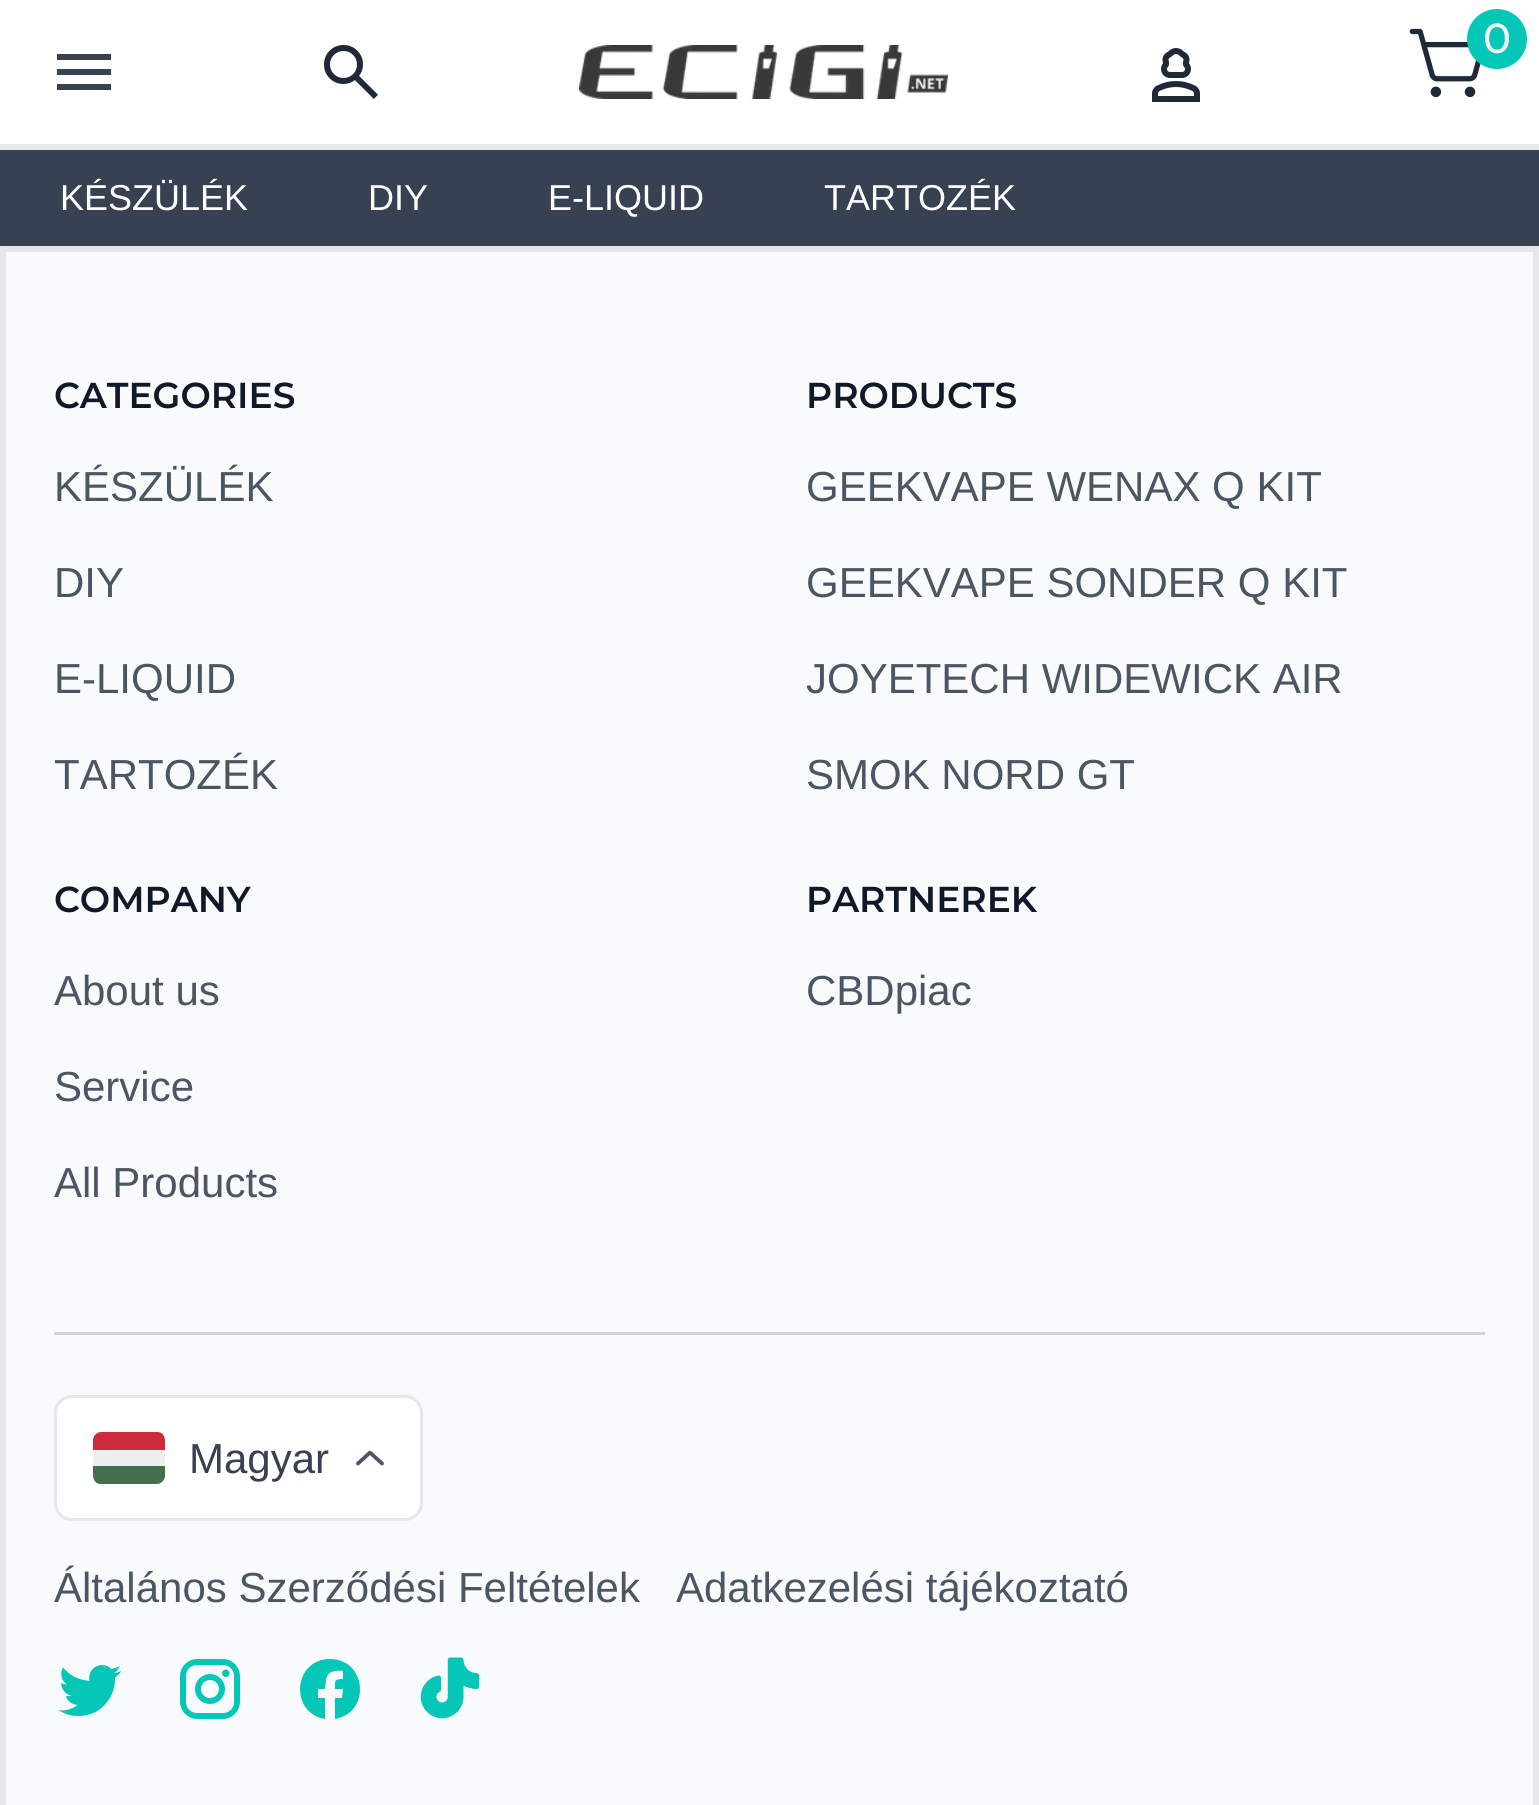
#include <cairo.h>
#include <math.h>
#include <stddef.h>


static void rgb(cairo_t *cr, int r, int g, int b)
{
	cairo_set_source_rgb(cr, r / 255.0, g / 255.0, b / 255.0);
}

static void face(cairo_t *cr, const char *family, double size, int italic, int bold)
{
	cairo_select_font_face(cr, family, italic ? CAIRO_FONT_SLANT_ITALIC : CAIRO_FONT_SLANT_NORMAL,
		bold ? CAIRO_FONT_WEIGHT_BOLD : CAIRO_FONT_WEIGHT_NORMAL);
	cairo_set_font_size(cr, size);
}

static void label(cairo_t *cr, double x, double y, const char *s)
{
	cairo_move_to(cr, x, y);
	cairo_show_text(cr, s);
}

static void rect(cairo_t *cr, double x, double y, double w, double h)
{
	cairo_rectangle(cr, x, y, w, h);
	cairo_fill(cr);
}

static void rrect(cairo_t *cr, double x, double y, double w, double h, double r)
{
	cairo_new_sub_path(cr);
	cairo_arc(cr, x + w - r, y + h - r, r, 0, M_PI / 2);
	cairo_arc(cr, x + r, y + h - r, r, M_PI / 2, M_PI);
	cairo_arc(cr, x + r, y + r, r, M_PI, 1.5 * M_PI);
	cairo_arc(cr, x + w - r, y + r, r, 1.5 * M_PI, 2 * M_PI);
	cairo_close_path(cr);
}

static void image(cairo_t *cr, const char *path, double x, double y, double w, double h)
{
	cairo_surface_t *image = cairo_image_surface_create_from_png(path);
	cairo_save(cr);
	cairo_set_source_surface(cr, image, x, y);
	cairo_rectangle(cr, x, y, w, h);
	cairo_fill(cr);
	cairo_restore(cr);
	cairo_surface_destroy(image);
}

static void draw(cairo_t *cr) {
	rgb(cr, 255, 255, 255);
	cairo_paint(cr);
	rgb(cr, 229, 231, 235);
	rect(cr, 0, 144, 1539, 6);
	image(cr, "image0.png", 1409, 28, 72, 70);
	rgb(cr, 5, 199, 183);
	cairo_arc(cr, 1497, 39, 30, 0, 2 * M_PI);
	cairo_fill(cr);
	face(cr, "Montserrat Medium", 42, 0, 0);
	rgb(cr, 243, 244, 246);
	label(cr, 1483, 53, "0");
	rgb(cr, 55, 65, 81);
	cairo_new_path(cr);
	cairo_move_to(cr, 57, 54);
	cairo_line_to(cr, 111, 54);
	cairo_line_to(cr, 111, 60);
	cairo_line_to(cr, 57, 60);
	cairo_close_path(cr);
	cairo_move_to(cr, 57, 69);
	cairo_line_to(cr, 111, 69);
	cairo_line_to(cr, 111, 75);
	cairo_line_to(cr, 57, 75);
	cairo_close_path(cr);
	cairo_move_to(cr, 57, 84);
	cairo_line_to(cr, 111, 84);
	cairo_line_to(cr, 111, 90);
	cairo_line_to(cr, 57, 90);
	cairo_close_path(cr);
	cairo_fill(cr);
	image(cr, "image1.png", 324, 45, 54, 54);
	image(cr, "image2.png", 579, 45, 369, 54);
	image(cr, "image3.png", 1152, 48, 48, 54);
	rect(cr, 0, 150, 1539, 96);
	face(cr, "Liberation Sans", 36, 0, 0);
	rgb(cr, 255, 255, 255);
	label(cr, 60, 210, "KÉSZÜLÉK");
	label(cr, 368, 210, "DIY");
	label(cr, 548, 210, "E-LIQUID");
	label(cr, 824, 210, "TARTOZÉK");
	rgb(cr, 249, 250, 251);
	cairo_rectangle(cr, 3, 249, 1533, 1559);
	cairo_fill_preserve(cr);
	rgb(cr, 229, 231, 235);
	cairo_set_line_width(cr, 6);
	cairo_stroke(cr);
	face(cr, "Montserrat SemiBold", 36, 0, 0);
	rgb(cr, 17, 24, 39);
	label(cr, 54, 408, "CATEGORIES");
	face(cr, "Liberation Sans", 42, 0, 0);
	rgb(cr, 75, 85, 99);
	label(cr, 54, 501, "KÉSZÜLÉK");
	label(cr, 54, 597, "DIY");
	label(cr, 54, 693, "E-LIQUID");
	label(cr, 54, 789, "TARTOZÉK");
	face(cr, "Montserrat SemiBold", 36, 0, 0);
	rgb(cr, 17, 24, 39);
	label(cr, 806, 408, "PRODUCTS");
	face(cr, "Liberation Sans", 42, 0, 0);
	rgb(cr, 75, 85, 99);
	label(cr, 806, 501, "GEEKVAPE WENAX Q KIT");
	label(cr, 806, 597, "GEEKVAPE SONDER Q KIT");
	label(cr, 806, 693, "JOYETECH WIDEWICK AIR");
	label(cr, 806, 789, "SMOK NORD GT");
	face(cr, "Montserrat SemiBold", 36, 0, 0);
	rgb(cr, 17, 24, 39);
	label(cr, 54, 912, "COMPANY");
	face(cr, "Liberation Sans", 42, 0, 0);
	rgb(cr, 75, 85, 99);
	label(cr, 54, 1005, "About us");
	label(cr, 54, 1101, "Service");
	label(cr, 54, 1197, "All Products");
	face(cr, "Montserrat SemiBold", 36, 0, 0);
	rgb(cr, 17, 24, 39);
	label(cr, 806, 912, "PARTNEREK");
	face(cr, "Liberation Sans", 42, 0, 0);
	rgb(cr, 75, 85, 99);
	label(cr, 806, 1005, "CBDpiac");
	rgb(cr, 209, 213, 219);
	rect(cr, 54, 1332, 1431, 3);
	rgb(cr, 255, 255, 255);
	rrect(cr, 55.5, 1396.5, 366, 123, 16.5);
	cairo_fill_preserve(cr);
	rgb(cr, 229, 231, 235);
	cairo_set_line_width(cr, 3);
	cairo_stroke(cr);
	rgb(cr, 238, 238, 238);
	rect(cr, 93, 1450, 72, 16);
	cairo_save(cr);
	cairo_rectangle(cr, 93, 1422, 72, 72);
	cairo_clip(cr);
	rgb(cr, 205, 42, 62);
	cairo_new_path(cr);
	cairo_move_to(cr, 157, 1432);
	cairo_line_to(cr, 101, 1432);
	cairo_curve_to(cr, 97, 1432, 93, 1436, 93, 1440);
	cairo_line_to(cr, 93, 1450);
	cairo_line_to(cr, 165, 1450);
	cairo_curve_to(cr, 165, 1444, 167, 1432, 157, 1432);
	cairo_fill(cr);
	rgb(cr, 67, 111, 77);
	cairo_new_path(cr);
	cairo_move_to(cr, 101, 1484);
	cairo_line_to(cr, 157, 1484);
	cairo_curve_to(cr, 161, 1484, 165, 1480, 165, 1476);
	cairo_line_to(cr, 165, 1466);
	cairo_line_to(cr, 93, 1466);
	cairo_curve_to(cr, 93, 1472, 91, 1484, 101, 1484);
	cairo_fill(cr);
	cairo_restore(cr);
	rgb(cr, 55, 65, 81);
	label(cr, 189, 1473, "Magyar");
	cairo_new_path(cr);
	cairo_move_to(cr, 358, 1463.5);
	cairo_line_to(cr, 369.5, 1453);
	cairo_curve_to(cr, 369.5, 1452.5, 370, 1452.5, 370.5, 1453);
	cairo_line_to(cr, 382, 1463.5);
	rgb(cr, 75, 85, 99);
	cairo_set_line_width(cr, 3.8);
	cairo_set_line_cap(cr, CAIRO_LINE_CAP_ROUND);
	cairo_stroke(cr);
	label(cr, 54, 1602, "Általános Szerződési Feltételek");
	label(cr, 676, 1602, "Adatkezelési tájékoztató");
	image(cr, "image4.png", 58, 1665, 64, 51);
	image(cr, "image5.png", 180, 1659, 60, 60);
	rgb(cr, 5, 199, 183);
	cairo_new_path(cr);
	cairo_move_to(cr, 330, 1659);
	cairo_curve_to(cr, 293, 1659, 289, 1713, 325, 1719);
	cairo_line_to(cr, 325, 1698);
	cairo_line_to(cr, 318, 1698);
	cairo_line_to(cr, 318, 1689);
	cairo_line_to(cr, 325, 1689);
	cairo_line_to(cr, 326, 1680);
	cairo_curve_to(cr, 327, 1671, 336, 1670, 343, 1671);
	cairo_line_to(cr, 343, 1679);
	cairo_curve_to(cr, 334, 1679, 335, 1681, 335, 1689);
	cairo_line_to(cr, 343, 1689);
	cairo_line_to(cr, 342, 1698);
	cairo_line_to(cr, 335, 1698);
	cairo_line_to(cr, 335, 1719);
	cairo_curve_to(cr, 371, 1713, 367, 1659, 330, 1659);
	cairo_fill(cr);
	image(cr, "image6.png", 420, 1657, 60, 62);
}

int main(void) {
	cairo_surface_t *surface = cairo_image_surface_create(CAIRO_FORMAT_RGB24, 1539, 1805);
	cairo_t *cr = cairo_create(surface);
	cairo_font_options_t *options = cairo_font_options_create();
	cairo_font_options_set_hint_metrics(options, CAIRO_HINT_METRICS_OFF);
	cairo_font_options_set_hint_style(options, CAIRO_HINT_STYLE_NONE);
	cairo_set_font_options(cr, options);
	cairo_set_miter_limit(cr, 4);
	draw(cr);
	cairo_surface_write_to_png(surface, "render.png");
	cairo_font_options_destroy(options);
	cairo_destroy(cr);
	cairo_surface_destroy(surface);
	return 0;
}
